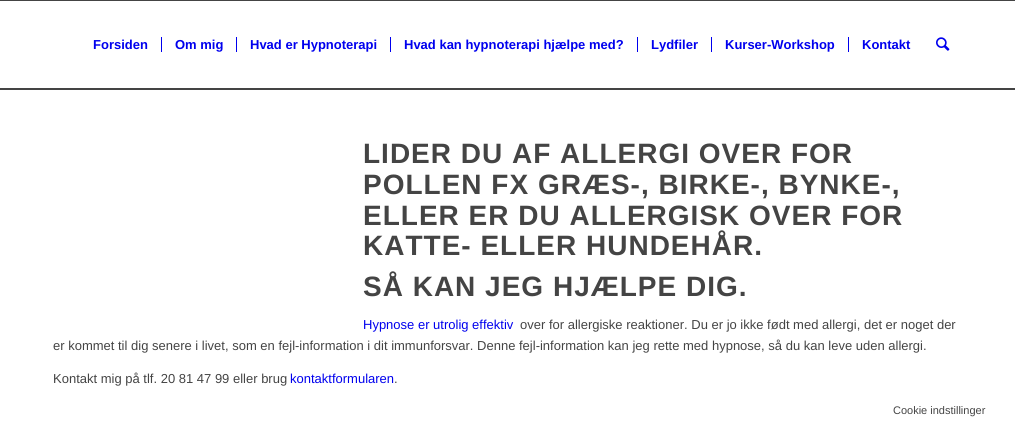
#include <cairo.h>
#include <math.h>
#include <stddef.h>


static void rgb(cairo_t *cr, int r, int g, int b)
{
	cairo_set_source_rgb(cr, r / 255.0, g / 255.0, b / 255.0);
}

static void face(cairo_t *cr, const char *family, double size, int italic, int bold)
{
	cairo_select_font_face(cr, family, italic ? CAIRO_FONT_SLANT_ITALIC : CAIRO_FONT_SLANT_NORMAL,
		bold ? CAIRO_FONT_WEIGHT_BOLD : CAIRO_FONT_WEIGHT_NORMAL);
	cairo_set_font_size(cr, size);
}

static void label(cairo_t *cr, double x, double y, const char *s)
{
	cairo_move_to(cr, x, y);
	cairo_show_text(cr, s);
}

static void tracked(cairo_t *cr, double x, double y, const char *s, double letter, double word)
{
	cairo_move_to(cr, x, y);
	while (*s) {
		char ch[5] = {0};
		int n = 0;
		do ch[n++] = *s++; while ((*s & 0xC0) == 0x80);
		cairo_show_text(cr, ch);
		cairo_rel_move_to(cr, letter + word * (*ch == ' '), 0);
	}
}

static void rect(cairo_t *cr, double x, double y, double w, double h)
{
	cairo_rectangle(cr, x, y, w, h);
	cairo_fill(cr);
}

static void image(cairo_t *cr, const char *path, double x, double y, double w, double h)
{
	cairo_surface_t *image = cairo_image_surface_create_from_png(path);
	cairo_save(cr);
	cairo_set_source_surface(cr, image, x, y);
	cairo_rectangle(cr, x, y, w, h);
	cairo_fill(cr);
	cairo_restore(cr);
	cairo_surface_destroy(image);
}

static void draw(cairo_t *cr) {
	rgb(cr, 255, 255, 255);
	cairo_paint(cr);
	rgb(cr, 68, 68, 68);
	rect(cr, 0, 0, 1015, 1);
	face(cr, "Liberation Sans", 13, 0, 1);
	rgb(cr, 0, 0, 238);
	label(cr, 93, 49, "Forsiden");
	label(cr, 175, 49, "Om mig");
	rect(cr, 161, 37, 1, 15);
	label(cr, 250, 49, "Hvad er Hypnoterapi");
	rect(cr, 236, 37, 1, 15);
	label(cr, 404, 49, "Hvad kan hypnoterapi hjælpe med?");
	rect(cr, 390, 37, 1, 15);
	label(cr, 651, 49, "Lydfiler");
	rect(cr, 637, 37, 1, 15);
	label(cr, 725, 49, "Kurser-Workshop");
	rect(cr, 711, 37, 1, 15);
	label(cr, 862, 49, "Kontakt");
	rect(cr, 848, 37, 1, 15);
	image(cr, "image0.png", 936, 37, 14, 14);
	rgb(cr, 68, 68, 68);
	rect(cr, 0, 88, 1015, 2);
	face(cr, "Liberation Sans", 28, 0, 1);
	tracked(cr, 363, 163, "LIDER DU AF ALLERGI OVER FOR", 1, 0);
	tracked(cr, 363, 194, "POLLEN FX GRÆS-, BIRKE-, BYNKE-,", 1, 0);
	tracked(cr, 363, 225, "ELLER ER DU ALLERGISK OVER FOR", 1, 0);
	tracked(cr, 363, 255, "KATTE- ELLER HUNDEHÅR.", 1, 0);
	tracked(cr, 363, 296, "SÅ KAN JEG HJÆLPE DIG.", 1, 0);
	face(cr, "Liberation Sans", 13, 0, 0);
	rgb(cr, 0, 0, 238);
	label(cr, 363, 329, "Hypnose er utrolig effektiv");
	rgb(cr, 68, 68, 68);
	label(cr, 520, 329, "over for allergiske reaktioner. Du er jo ikke født med allergi, det er noget der");
	label(cr, 53, 350, "er kommet til dig senere i livet, som en fejl-information i dit immunforsvar. Denne fejl-information kan jeg rette med hypnose, så du kan leve uden allergi.");
	label(cr, 53, 383, "Kontakt mig på tlf. 20 81 47 99 eller brug");
	rgb(cr, 0, 0, 238);
	label(cr, 290, 383, "kontaktformularen");
	rgb(cr, 68, 68, 68);
	label(cr, 394, 383, ".");
	face(cr, "Liberation Sans", 11, 0, 0);
	label(cr, 893, 414, "Cookie indstillinger");
}

int main(void) {
	cairo_surface_t *surface = cairo_image_surface_create(CAIRO_FORMAT_RGB24, 1015, 421);
	cairo_t *cr = cairo_create(surface);
	cairo_font_options_t *options = cairo_font_options_create();
	cairo_font_options_set_hint_metrics(options, CAIRO_HINT_METRICS_OFF);
	cairo_font_options_set_hint_style(options, CAIRO_HINT_STYLE_NONE);
	cairo_set_font_options(cr, options);
	cairo_set_miter_limit(cr, 4);
	draw(cr);
	cairo_surface_write_to_png(surface, "render.png");
	cairo_font_options_destroy(options);
	cairo_destroy(cr);
	cairo_surface_destroy(surface);
	return 0;
}
